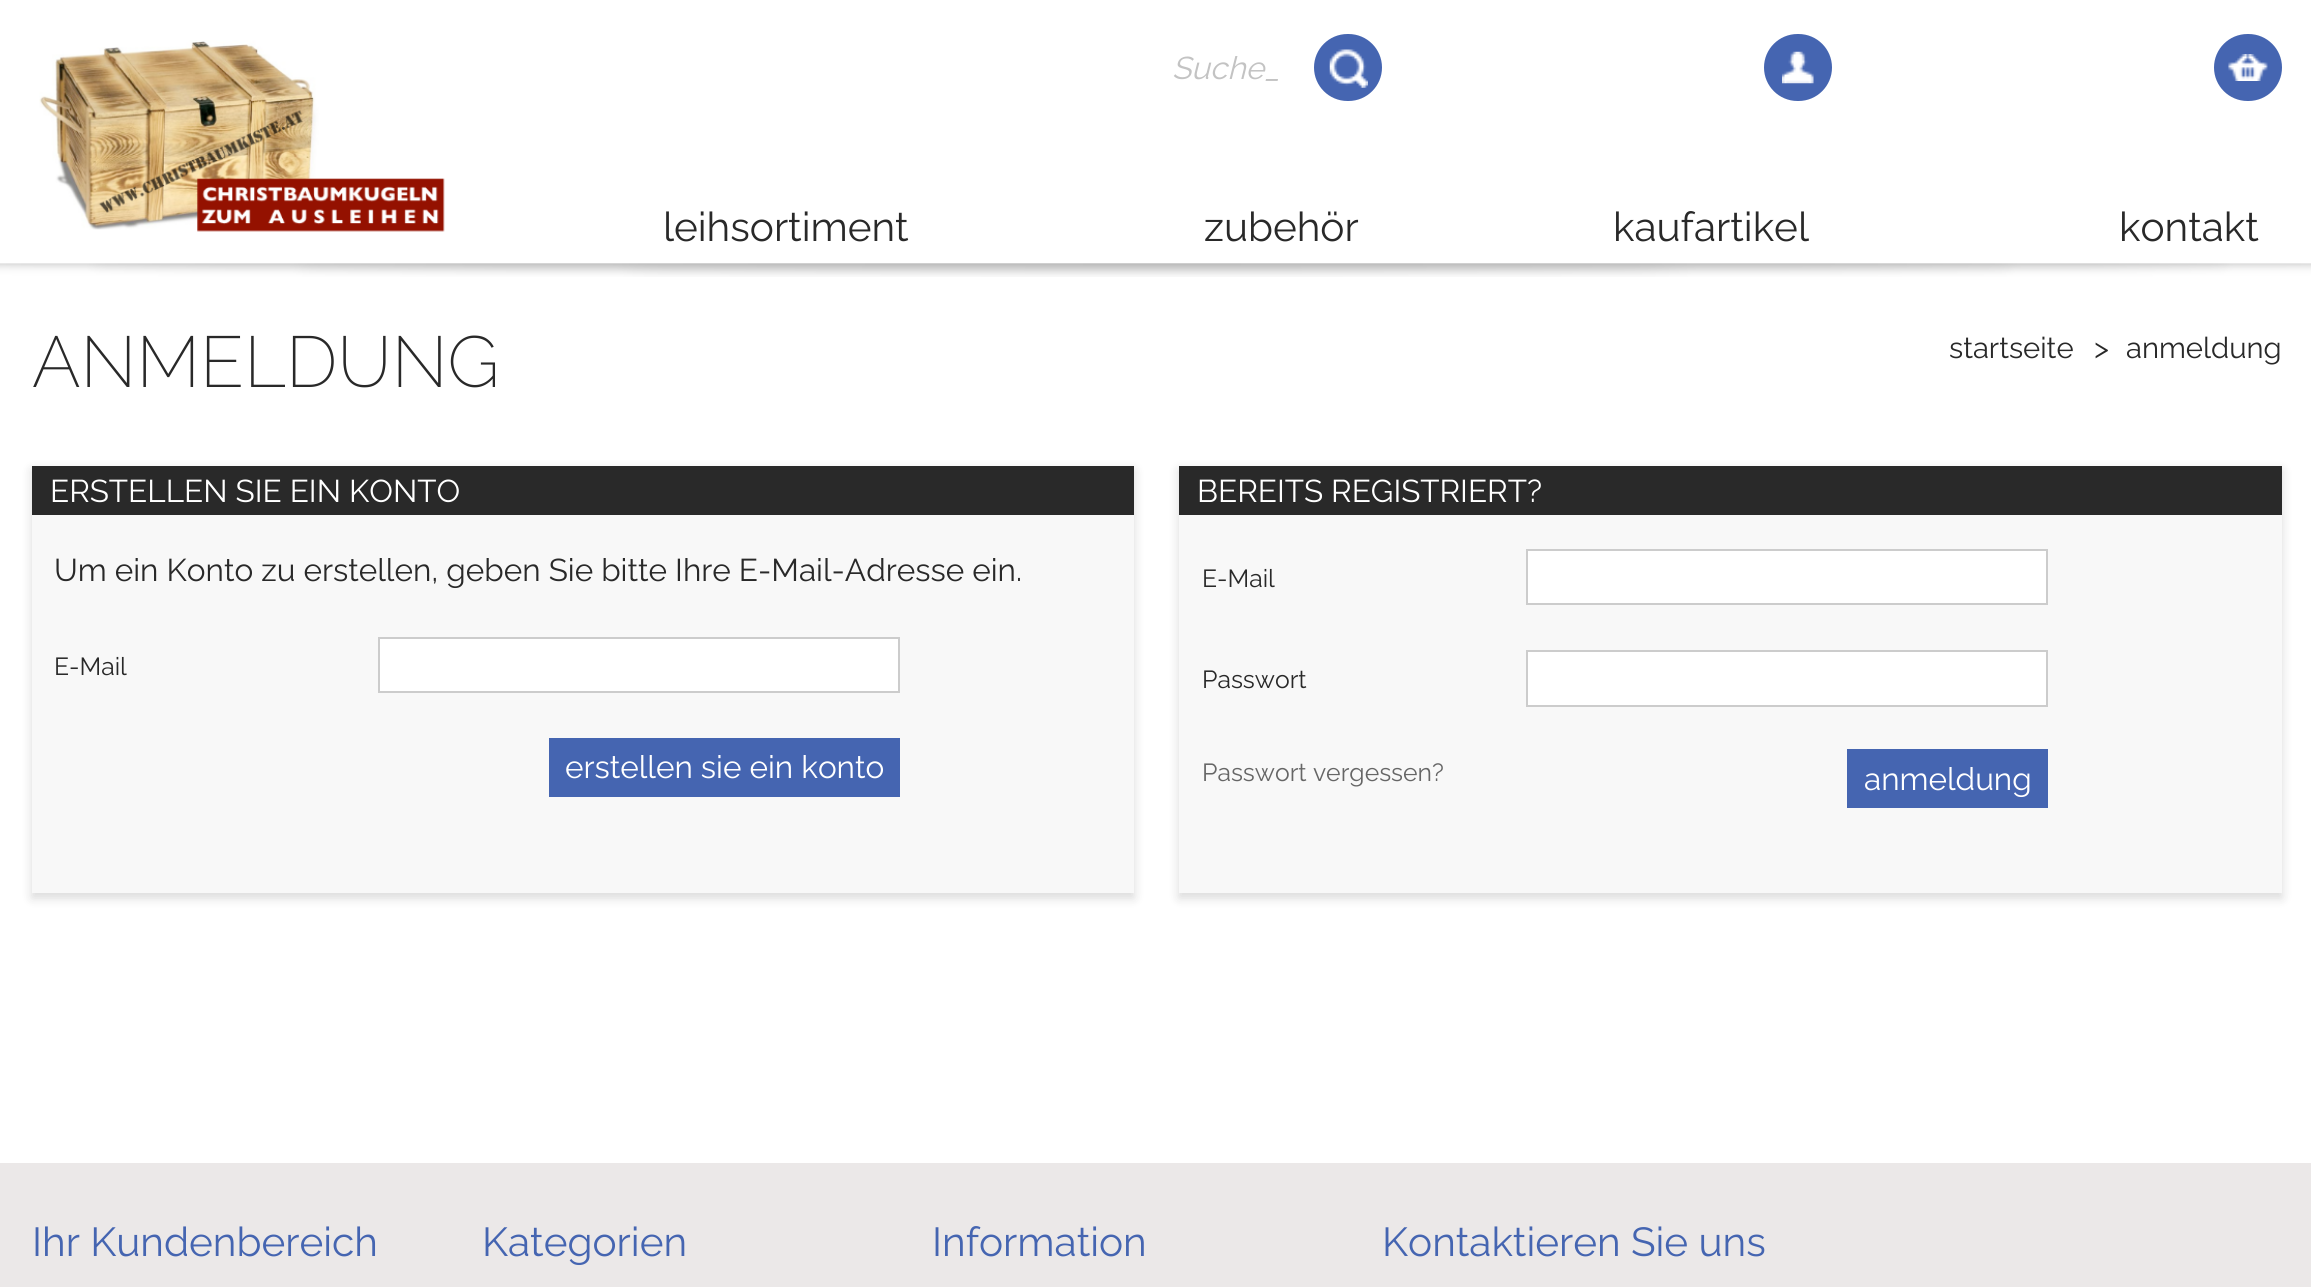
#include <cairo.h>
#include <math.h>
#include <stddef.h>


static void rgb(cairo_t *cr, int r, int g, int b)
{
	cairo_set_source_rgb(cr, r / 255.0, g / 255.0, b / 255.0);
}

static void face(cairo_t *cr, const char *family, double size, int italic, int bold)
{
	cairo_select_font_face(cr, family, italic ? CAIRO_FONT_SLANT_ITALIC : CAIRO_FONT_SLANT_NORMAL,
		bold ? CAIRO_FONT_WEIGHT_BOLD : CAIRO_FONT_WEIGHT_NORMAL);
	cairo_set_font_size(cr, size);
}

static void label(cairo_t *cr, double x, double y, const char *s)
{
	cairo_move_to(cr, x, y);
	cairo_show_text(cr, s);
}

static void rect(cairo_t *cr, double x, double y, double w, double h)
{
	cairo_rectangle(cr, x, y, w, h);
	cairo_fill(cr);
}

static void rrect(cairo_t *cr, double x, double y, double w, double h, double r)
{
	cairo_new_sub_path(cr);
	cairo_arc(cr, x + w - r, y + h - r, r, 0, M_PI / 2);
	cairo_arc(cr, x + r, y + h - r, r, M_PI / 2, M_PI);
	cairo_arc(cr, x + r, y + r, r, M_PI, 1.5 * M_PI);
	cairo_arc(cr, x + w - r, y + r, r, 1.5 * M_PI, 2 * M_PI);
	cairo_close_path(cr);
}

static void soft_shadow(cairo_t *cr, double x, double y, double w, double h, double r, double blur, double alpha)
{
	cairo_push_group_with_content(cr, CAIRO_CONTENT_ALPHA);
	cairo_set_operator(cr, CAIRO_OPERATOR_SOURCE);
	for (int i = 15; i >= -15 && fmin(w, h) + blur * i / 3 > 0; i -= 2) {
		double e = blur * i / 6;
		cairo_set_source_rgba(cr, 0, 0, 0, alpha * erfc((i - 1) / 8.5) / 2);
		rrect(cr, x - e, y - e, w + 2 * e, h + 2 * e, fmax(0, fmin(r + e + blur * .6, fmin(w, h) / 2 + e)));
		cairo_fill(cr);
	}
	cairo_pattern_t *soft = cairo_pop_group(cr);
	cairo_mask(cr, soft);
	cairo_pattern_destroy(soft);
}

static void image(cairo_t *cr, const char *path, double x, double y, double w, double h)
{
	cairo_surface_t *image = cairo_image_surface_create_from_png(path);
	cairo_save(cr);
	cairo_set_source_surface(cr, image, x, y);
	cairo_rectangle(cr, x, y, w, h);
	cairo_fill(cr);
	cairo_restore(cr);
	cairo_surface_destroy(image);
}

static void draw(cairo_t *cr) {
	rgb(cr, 255, 255, 255);
	cairo_paint(cr);
	image(cr, "image0.png", 0, 263, 2311, 14);
	image(cr, "image1.png", 39, 40, 406, 192);
	face(cr, "Raleway", 31.5, 1, 0);
	rgb(cr, 195, 195, 195);
	label(cr, 1172, 79, "Suche_");
	rgb(cr, 69, 101, 177);
	rrect(cr, 1314, 34, 68, 67, 33.5);
	cairo_fill(cr);
	image(cr, "image2.png", 1329, 49, 39, 39);
	rrect(cr, 1764, 34, 68, 67, 33.5);
	cairo_fill(cr);
	image(cr, "image3.png", 1782, 51, 32, 33);
	rrect(cr, 2214, 34, 68, 67, 33.5);
	cairo_fill(cr);
	image(cr, "image4.png", 2228, 54, 40, 27);
	face(cr, "Raleway", 40.5, 0, 0);
	rgb(cr, 41, 41, 41);
	label(cr, 663, 241, "leihsortiment");
	label(cr, 1204, 241, "zubehör");
	label(cr, 1613, 241, "kaufartikel");
	label(cr, 2119, 241, "kontakt");
	face(cr, "Raleway ExtraLight", 72, 0, 0);
	label(cr, 32, 387, "ANMELDUNG");
	face(cr, "Raleway", 29.25, 0, 0);
	label(cr, 1949, 358, "startseite");
	label(cr, 2094, 358, ">");
	label(cr, 2126, 358, "anmeldung");
	rgb(cr, 0, 0, 0);
	soft_shadow(cr, 32, 470, 1102, 428, 0, 5.5, 0.15);
	rgb(cr, 248, 248, 248);
	rect(cr, 32, 515, 1102, 378);
	rgb(cr, 41, 41, 41);
	rect(cr, 32, 466, 1102, 49);
	face(cr, "Raleway", 31.5, 0, 0);
	rgb(cr, 255, 255, 255);
	label(cr, 50, 502, "ERSTELLEN SIE EIN KONTO");
	rgb(cr, 41, 41, 41);
	label(cr, 54, 581, "Um ein Konto zu erstellen, geben Sie bitte Ihre E-Mail-Adresse ein.");
	face(cr, "Raleway", 24.75, 0, 0);
	label(cr, 54, 675, "E-Mail");
	rgb(cr, 255, 255, 255);
	cairo_rectangle(cr, 379, 638, 520, 54);
	cairo_fill_preserve(cr);
	rgb(cr, 204, 204, 204);
	cairo_stroke(cr);
	rgb(cr, 69, 101, 177);
	rect(cr, 549, 738, 351, 59);
	face(cr, "Raleway", 31.5, 0, 0);
	rgb(cr, 255, 255, 255);
	label(cr, 565, 778, "erstellen sie ein konto");
	rgb(cr, 0, 0, 0);
	soft_shadow(cr, 1179, 470, 1103, 428, 0, 5.5, 0.15);
	rgb(cr, 248, 248, 248);
	rect(cr, 1179, 515, 1103, 378);
	rgb(cr, 41, 41, 41);
	rect(cr, 1179, 466, 1103, 49);
	rgb(cr, 255, 255, 255);
	label(cr, 1197, 502, "BEREITS REGISTRIERT?");
	face(cr, "Raleway", 24.75, 0, 0);
	rgb(cr, 41, 41, 41);
	label(cr, 1202, 587, "E-Mail");
	rgb(cr, 255, 255, 255);
	cairo_rectangle(cr, 1527, 550, 520, 54);
	cairo_fill_preserve(cr);
	rgb(cr, 204, 204, 204);
	cairo_stroke(cr);
	rgb(cr, 41, 41, 41);
	label(cr, 1202, 688, "Passwort");
	rgb(cr, 255, 255, 255);
	cairo_rectangle(cr, 1527, 651, 520, 55);
	cairo_fill_preserve(cr);
	rgb(cr, 204, 204, 204);
	cairo_stroke(cr);
	rgb(cr, 102, 102, 102);
	label(cr, 1202, 781, "Passwort vergessen?");
	rgb(cr, 69, 101, 177);
	rect(cr, 1847, 749, 201, 59);
	face(cr, "Raleway", 31.5, 0, 0);
	rgb(cr, 255, 255, 255);
	label(cr, 1864, 790, "anmeldung");
	rgb(cr, 235, 232, 232);
	rect(cr, 0, 1163, 2311, 124);
	face(cr, "Raleway", 40.5, 0, 0);
	rgb(cr, 69, 101, 177);
	label(cr, 32, 1256, "Ihr Kundenbereich");
	label(cr, 482, 1256, "Kategorien");
	label(cr, 932, 1256, "Information");
	label(cr, 1382, 1256, "Kontaktieren Sie uns");
}

int main(void) {
	cairo_surface_t *surface = cairo_image_surface_create(CAIRO_FORMAT_RGB24, 2311, 1287);
	cairo_t *cr = cairo_create(surface);
	cairo_font_options_t *options = cairo_font_options_create();
	cairo_font_options_set_hint_metrics(options, CAIRO_HINT_METRICS_OFF);
	cairo_font_options_set_hint_style(options, CAIRO_HINT_STYLE_NONE);
	cairo_set_font_options(cr, options);
	cairo_set_miter_limit(cr, 4);
	draw(cr);
	cairo_surface_write_to_png(surface, "render.png");
	cairo_font_options_destroy(options);
	cairo_destroy(cr);
	cairo_surface_destroy(surface);
	return 0;
}
